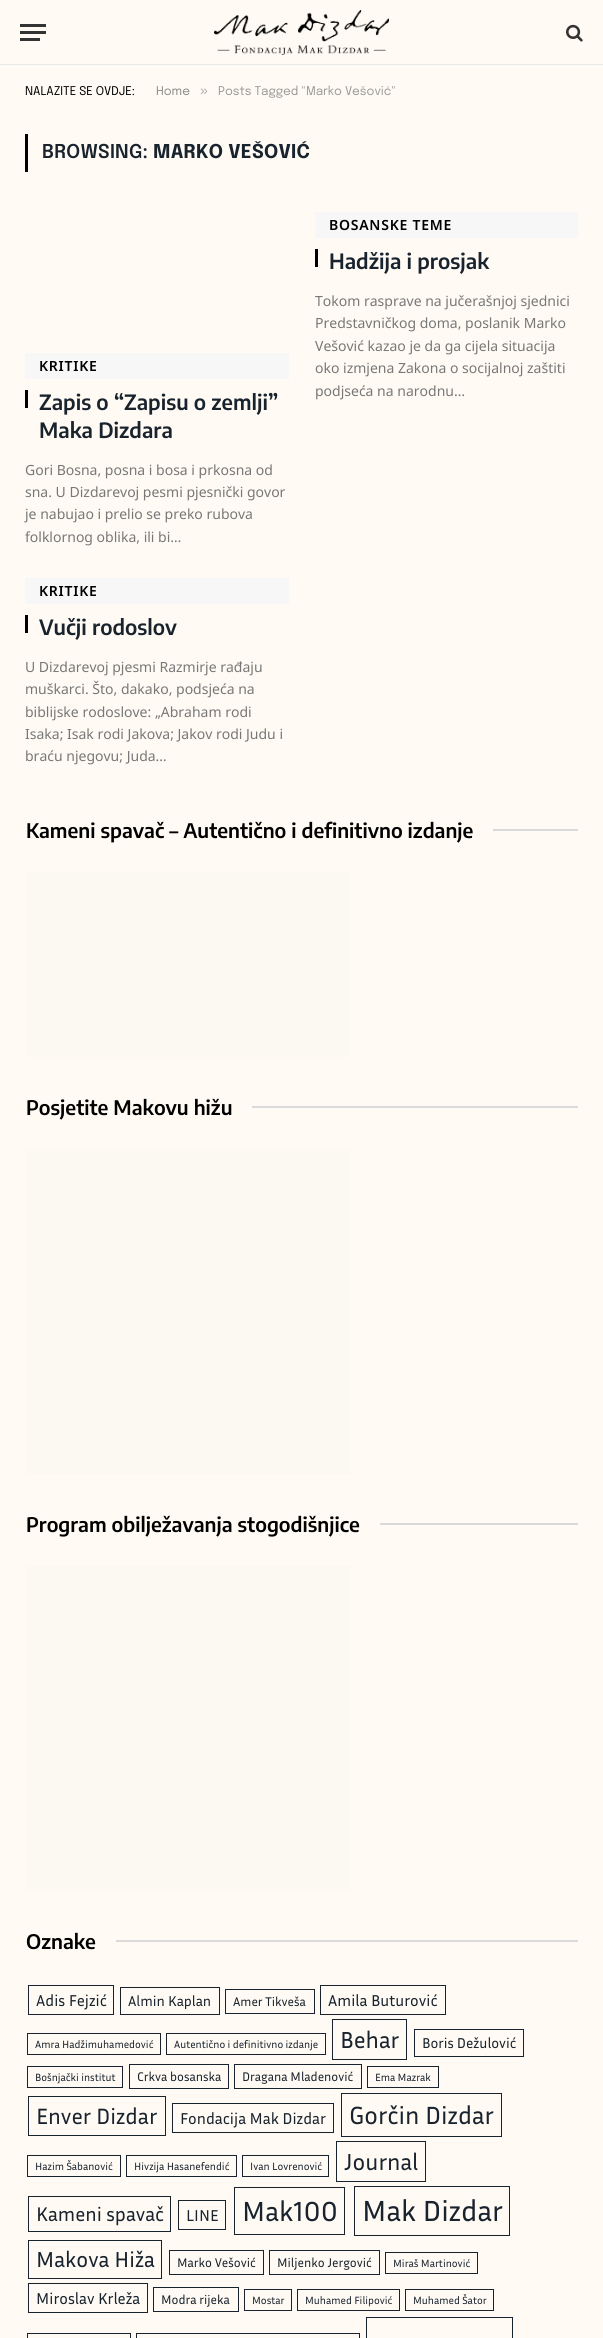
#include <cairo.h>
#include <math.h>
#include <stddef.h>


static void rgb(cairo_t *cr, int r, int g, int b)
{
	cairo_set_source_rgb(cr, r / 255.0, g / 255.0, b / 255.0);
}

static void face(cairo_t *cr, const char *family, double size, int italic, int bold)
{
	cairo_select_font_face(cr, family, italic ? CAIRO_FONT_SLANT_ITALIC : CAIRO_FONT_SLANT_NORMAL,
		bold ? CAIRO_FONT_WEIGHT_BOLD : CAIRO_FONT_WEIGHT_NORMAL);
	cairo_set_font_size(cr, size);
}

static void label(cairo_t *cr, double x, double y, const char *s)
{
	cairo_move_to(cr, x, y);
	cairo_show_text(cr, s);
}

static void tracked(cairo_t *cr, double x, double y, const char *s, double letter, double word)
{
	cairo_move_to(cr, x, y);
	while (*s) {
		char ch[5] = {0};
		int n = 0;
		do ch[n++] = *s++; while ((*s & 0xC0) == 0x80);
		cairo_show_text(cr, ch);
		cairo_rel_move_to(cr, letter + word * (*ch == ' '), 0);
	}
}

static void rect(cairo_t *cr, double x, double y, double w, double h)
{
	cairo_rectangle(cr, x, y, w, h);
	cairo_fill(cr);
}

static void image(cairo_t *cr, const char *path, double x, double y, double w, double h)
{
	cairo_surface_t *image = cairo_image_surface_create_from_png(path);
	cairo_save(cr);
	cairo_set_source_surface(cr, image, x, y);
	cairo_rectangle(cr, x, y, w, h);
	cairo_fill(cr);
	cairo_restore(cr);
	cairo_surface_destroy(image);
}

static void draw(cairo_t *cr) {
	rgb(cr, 255, 251, 244);
	cairo_paint(cr);
	rgb(cr, 232, 232, 232);
	rect(cr, 0, 64, 603, 1);
	rgb(cr, 51, 51, 51);
	rect(cr, 20, 38, 20, 3);
	rect(cr, 20, 24, 26, 3);
	rect(cr, 20, 31, 26, 3);
	image(cr, "image0.png", 214, 10, 175, 45);
	image(cr, "image1.png", 566, 24, 17, 18);
	face(cr, "Epilogue", 12, 0, 0);
	rgb(cr, 0, 0, 0);
	label(cr, 25, 95, "NALAZITE SE OVDJE:");
	rgb(cr, 138, 138, 138);
	label(cr, 156, 95, "Home");
	face(cr, "Liberation Sans", 14, 0, 0);
	rgb(cr, 173, 173, 171);
	label(cr, 200, 95, "»");
	face(cr, "Epilogue", 12, 0, 0);
	rgb(cr, 153, 153, 153);
	label(cr, 218, 95, "Posts Tagged \"Marko Vešović\"");
	rgb(cr, 0, 0, 0);
	rect(cr, 25, 134, 3, 38);
	face(cr, "Epilogue SemiBold", 19, 0, 0);
	rgb(cr, 25, 35, 45);
	tracked(cr, 42, 158, "BROWSING:", 0.25, 0);
	face(cr, "Epilogue", 19, 0, 1);
	tracked(cr, 153, 158, "MARKO VEŠOVIĆ", 0.25, 0);
	rgb(cr, 247, 247, 247);
	rect(cr, 315, 212, 263, 26);
	face(cr, "Noto Sans SemiBold", 14, 0, 0);
	rgb(cr, 0, 0, 0);
	tracked(cr, 329, 230, "BOSANSKE TEME", 0.75, 0);
	rect(cr, 315, 249, 3, 18);
	face(cr, "Encode Sans SemiBold", 21, 0, 0);
	rgb(cr, 25, 35, 45);
	label(cr, 329, 269, "Hadžija i prosjak");
	face(cr, "Noto Sans", 14, 0, 0);
	rgb(cr, 119, 119, 119);
	label(cr, 315, 306, "Tokom rasprave na jučerašnjoj sjednici");
	label(cr, 315, 328, "Predstavničkog doma, poslanik Marko");
	label(cr, 315, 351, "Vešović kazao je da ga cijela situacija");
	label(cr, 315, 373, "oko izmjena Zakona o socijalnoj zaštiti");
	label(cr, 315, 396, "podjseća na narodnu…");
	rgb(cr, 247, 247, 247);
	rect(cr, 25, 353, 264, 26);
	face(cr, "Noto Sans SemiBold", 14, 0, 0);
	rgb(cr, 0, 0, 0);
	tracked(cr, 39, 371, "KRITIKE", 0.75, 0);
	rect(cr, 25, 390, 3, 18);
	face(cr, "Encode Sans SemiBold", 21, 0, 0);
	rgb(cr, 25, 35, 45);
	label(cr, 39, 410, "Zapis o “Zapisu o zemlji”");
	label(cr, 39, 438, "Maka Dizdara");
	face(cr, "Noto Sans", 14, 0, 0);
	rgb(cr, 119, 119, 119);
	label(cr, 25, 475, "Gori Bosna, posna i bosa i prkosna od");
	label(cr, 25, 497, "sna. U Dizdarevoj pesmi pjesnički govor");
	label(cr, 25, 519, "je nabujao i prelio se preko rubova");
	label(cr, 25, 542, "folklornog oblika, ili bi…");
	rgb(cr, 247, 247, 247);
	rect(cr, 25, 578, 264, 26);
	face(cr, "Noto Sans SemiBold", 14, 0, 0);
	rgb(cr, 0, 0, 0);
	tracked(cr, 39, 596, "KRITIKE", 0.75, 0);
	rect(cr, 25, 615, 3, 18);
	face(cr, "Encode Sans SemiBold", 21, 0, 0);
	rgb(cr, 25, 35, 45);
	label(cr, 39, 635, "Vučji rodoslov");
	face(cr, "Noto Sans", 14, 0, 0);
	rgb(cr, 119, 119, 119);
	label(cr, 25, 672, "U Dizdarevoj pjesmi Razmirje rađaju");
	label(cr, 25, 694, "muškarci. Što, dakako, podsjeća na");
	label(cr, 25, 717, "biblijske rodoslove: „Abraham rodi");
	label(cr, 25, 739, "Isaka; Isak rodi Jakova; Jakov rodi Judu i");
	label(cr, 25, 761, "braću njegovu; Juda…");
	face(cr, "Encode Sans SemiBold", 20, 0, 0);
	rgb(cr, 0, 0, 0);
	label(cr, 26, 838, "Kameni spavač – Autentično i definitivno izdanje");
	rgb(cr, 217, 217, 217);
	rect(cr, 493, 829, 85, 2);
	rgb(cr, 252, 248, 242);
	rect(cr, 26, 872, 325, 185);
	rgb(cr, 0, 0, 0);
	label(cr, 26, 1115, "Posjetite Makovu hižu");
	rgb(cr, 217, 217, 217);
	rect(cr, 252, 1106, 326, 2);
	rgb(cr, 252, 248, 242);
	rect(cr, 26, 1149, 325, 325);
	rgb(cr, 0, 0, 0);
	label(cr, 26, 1532, "Program obilježavanja stogodišnjice");
	rgb(cr, 217, 217, 217);
	rect(cr, 380, 1523, 198, 2);
	rgb(cr, 252, 248, 242);
	rect(cr, 26, 1566, 325, 325);
	rgb(cr, 0, 0, 0);
	label(cr, 26, 1949, "Oznake");
	rgb(cr, 217, 217, 217);
	rect(cr, 116, 1940, 462, 2);
	cairo_rectangle(cr, 28.5, 1985.5, 85, 29);
	rgb(cr, 25, 35, 45);
	cairo_set_line_width(cr, 1);
	cairo_stroke(cr);
	face(cr, "Inria Sans", 16, 0, 0);
	label(cr, 36, 2006, "Adis Fejzić");
	cairo_rectangle(cr, 120.5, 1987.5, 99, 27);
	cairo_stroke(cr);
	face(cr, "Inria Sans", 14.5, 0, 0);
	label(cr, 128, 2006, "Almin Kaplan");
	cairo_rectangle(cr, 225.5, 1989.5, 89, 24);
	cairo_stroke(cr);
	face(cr, "Inria Sans", 12.75, 0, 0);
	label(cr, 233, 2006, "Amer Tikveša");
	cairo_rectangle(cr, 320.5, 1985.5, 125, 29);
	cairo_stroke(cr);
	face(cr, "Inria Sans", 16, 0, 0);
	label(cr, 328, 2006, "Amila Buturović");
	cairo_rectangle(cr, 27.5, 2033.5, 133, 21);
	cairo_stroke(cr);
	face(cr, "Inria Sans", 10.7, 0, 0);
	label(cr, 35, 2048, "Amra Hadžimuhamedović");
	cairo_rectangle(cr, 166.5, 2033.5, 159, 21);
	cairo_stroke(cr);
	label(cr, 174, 2048, "Autentično i definitivno izdanje");
	cairo_rectangle(cr, 332.5, 2019.5, 74, 40);
	cairo_stroke(cr);
	face(cr, "Inria Sans", 23.5, 0, 0);
	label(cr, 340, 2048, "Behar");
	cairo_rectangle(cr, 414.5, 2029.5, 109, 27);
	cairo_stroke(cr);
	face(cr, "Inria Sans", 14.5, 0, 0);
	label(cr, 422, 2048, "Boris Dežulović");
	cairo_rectangle(cr, 27.5, 2066.5, 95, 21);
	cairo_stroke(cr);
	face(cr, "Inria Sans", 10.7, 0, 0);
	label(cr, 35, 2081, "Bošnjački institut");
	cairo_rectangle(cr, 129.5, 2064.5, 99, 24);
	cairo_stroke(cr);
	face(cr, "Inria Sans", 12.75, 0, 0);
	label(cr, 137, 2081, "Crkva bosanska");
	cairo_rectangle(cr, 234.5, 2064.5, 127, 24);
	cairo_stroke(cr);
	label(cr, 242, 2081, "Dragana Mladenović");
	cairo_rectangle(cr, 367.5, 2066.5, 71, 21);
	cairo_stroke(cr);
	face(cr, "Inria Sans", 10.7, 0, 0);
	label(cr, 375, 2081, "Ema Mazrak");
	cairo_rectangle(cr, 28.5, 2096.5, 137, 39);
	cairo_stroke(cr);
	face(cr, "Inria Sans", 22.5, 0, 0);
	label(cr, 36, 2124, "Enver Dizdar");
	cairo_rectangle(cr, 172.5, 2103.5, 161, 29);
	cairo_stroke(cr);
	face(cr, "Inria Sans", 16, 0, 0);
	label(cr, 180, 2124, "Fondacija Mak Dizdar");
	cairo_rectangle(cr, 341.5, 2093.5, 160, 43);
	cairo_stroke(cr);
	face(cr, "Inria Sans", 25.25, 0, 0);
	label(cr, 349, 2124, "Gorčin Dizdar");
	cairo_rectangle(cr, 27.5, 2155.5, 93, 21);
	cairo_stroke(cr);
	face(cr, "Inria Sans", 10.7, 0, 0);
	label(cr, 35, 2170, "Hazim Šabanović");
	cairo_rectangle(cr, 126.5, 2155.5, 110, 21);
	cairo_stroke(cr);
	label(cr, 134, 2170, "Hivzija Hasanefendić");
	cairo_rectangle(cr, 242.5, 2155.5, 86, 21);
	cairo_stroke(cr);
	label(cr, 250, 2170, "Ivan Lovrenović");
	cairo_rectangle(cr, 336.5, 2141.5, 89, 40);
	cairo_stroke(cr);
	face(cr, "Inria Sans", 23.5, 0, 0);
	label(cr, 344, 2170, "Journal");
	cairo_rectangle(cr, 28.5, 2196.5, 142, 35);
	cairo_stroke(cr);
	face(cr, "Inria Sans", 20, 0, 0);
	label(cr, 36, 2221, "Kameni spavač");
	cairo_rectangle(cr, 178.5, 2200.5, 47, 29);
	cairo_stroke(cr);
	face(cr, "Inria Sans", 16, 0, 0);
	label(cr, 186, 2221, "LINE");
	cairo_rectangle(cr, 234.5, 2187.5, 110, 47);
	cairo_stroke(cr);
	face(cr, "Inria Sans", 28, 0, 0);
	label(cr, 242, 2221, "Mak100");
	cairo_rectangle(cr, 354.5, 2186.5, 155, 49);
	cairo_stroke(cr);
	face(cr, "Inria Sans", 29.5, 0, 0);
	label(cr, 362, 2221, "Mak Dizdar");
	cairo_rectangle(cr, 28.5, 2240.5, 133, 38);
	cairo_stroke(cr);
	face(cr, "Inria Sans", 22, 0, 0);
	label(cr, 36, 2267, "Makova Hiža");
	cairo_rectangle(cr, 169.5, 2250.5, 94, 24);
	cairo_stroke(cr);
	face(cr, "Inria Sans", 12.75, 0, 0);
	label(cr, 177, 2267, "Marko Vešović");
	cairo_rectangle(cr, 269.5, 2250.5, 110, 24);
	cairo_stroke(cr);
	label(cr, 277, 2267, "Miljenko Jergović");
	cairo_rectangle(cr, 385.5, 2252.5, 92, 21);
	cairo_stroke(cr);
	face(cr, "Inria Sans", 10.7, 0, 0);
	label(cr, 393, 2267, "Miraš Martinović");
	cairo_rectangle(cr, 28.5, 2283.5, 119, 29);
	cairo_stroke(cr);
	face(cr, "Inria Sans", 16, 0, 0);
	label(cr, 36, 2304, "Miroslav Krleža");
	cairo_rectangle(cr, 153.5, 2287.5, 85, 24);
	cairo_stroke(cr);
	face(cr, "Inria Sans", 12.75, 0, 0);
	label(cr, 161, 2304, "Modra rijeka");
	cairo_rectangle(cr, 244.5, 2289.5, 47, 21);
	cairo_stroke(cr);
	face(cr, "Inria Sans", 10.7, 0, 0);
	label(cr, 252, 2304, "Mostar");
	cairo_rectangle(cr, 297.5, 2289.5, 102, 21);
	cairo_stroke(cr);
	label(cr, 305, 2304, "Muhamed Filipović");
	cairo_rectangle(cr, 405.5, 2289.5, 88, 21);
	cairo_stroke(cr);
	label(cr, 413, 2304, "Muhamed Šator");
	cairo_rectangle(cr, 27.5, 2333.5, 103, 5);
	cairo_stroke(cr);
	cairo_rectangle(cr, 136.5, 2333.5, 223, 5);
	cairo_stroke(cr);
	cairo_rectangle(cr, 366.5, 2317.5, 146, 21);
	cairo_stroke(cr);
}

int main(void) {
	cairo_surface_t *surface = cairo_image_surface_create(CAIRO_FORMAT_RGB24, 603, 2338);
	cairo_t *cr = cairo_create(surface);
	cairo_font_options_t *options = cairo_font_options_create();
	cairo_font_options_set_hint_metrics(options, CAIRO_HINT_METRICS_OFF);
	cairo_font_options_set_hint_style(options, CAIRO_HINT_STYLE_NONE);
	cairo_set_font_options(cr, options);
	cairo_set_miter_limit(cr, 4);
	draw(cr);
	cairo_surface_write_to_png(surface, "render.png");
	cairo_font_options_destroy(options);
	cairo_destroy(cr);
	cairo_surface_destroy(surface);
	return 0;
}
